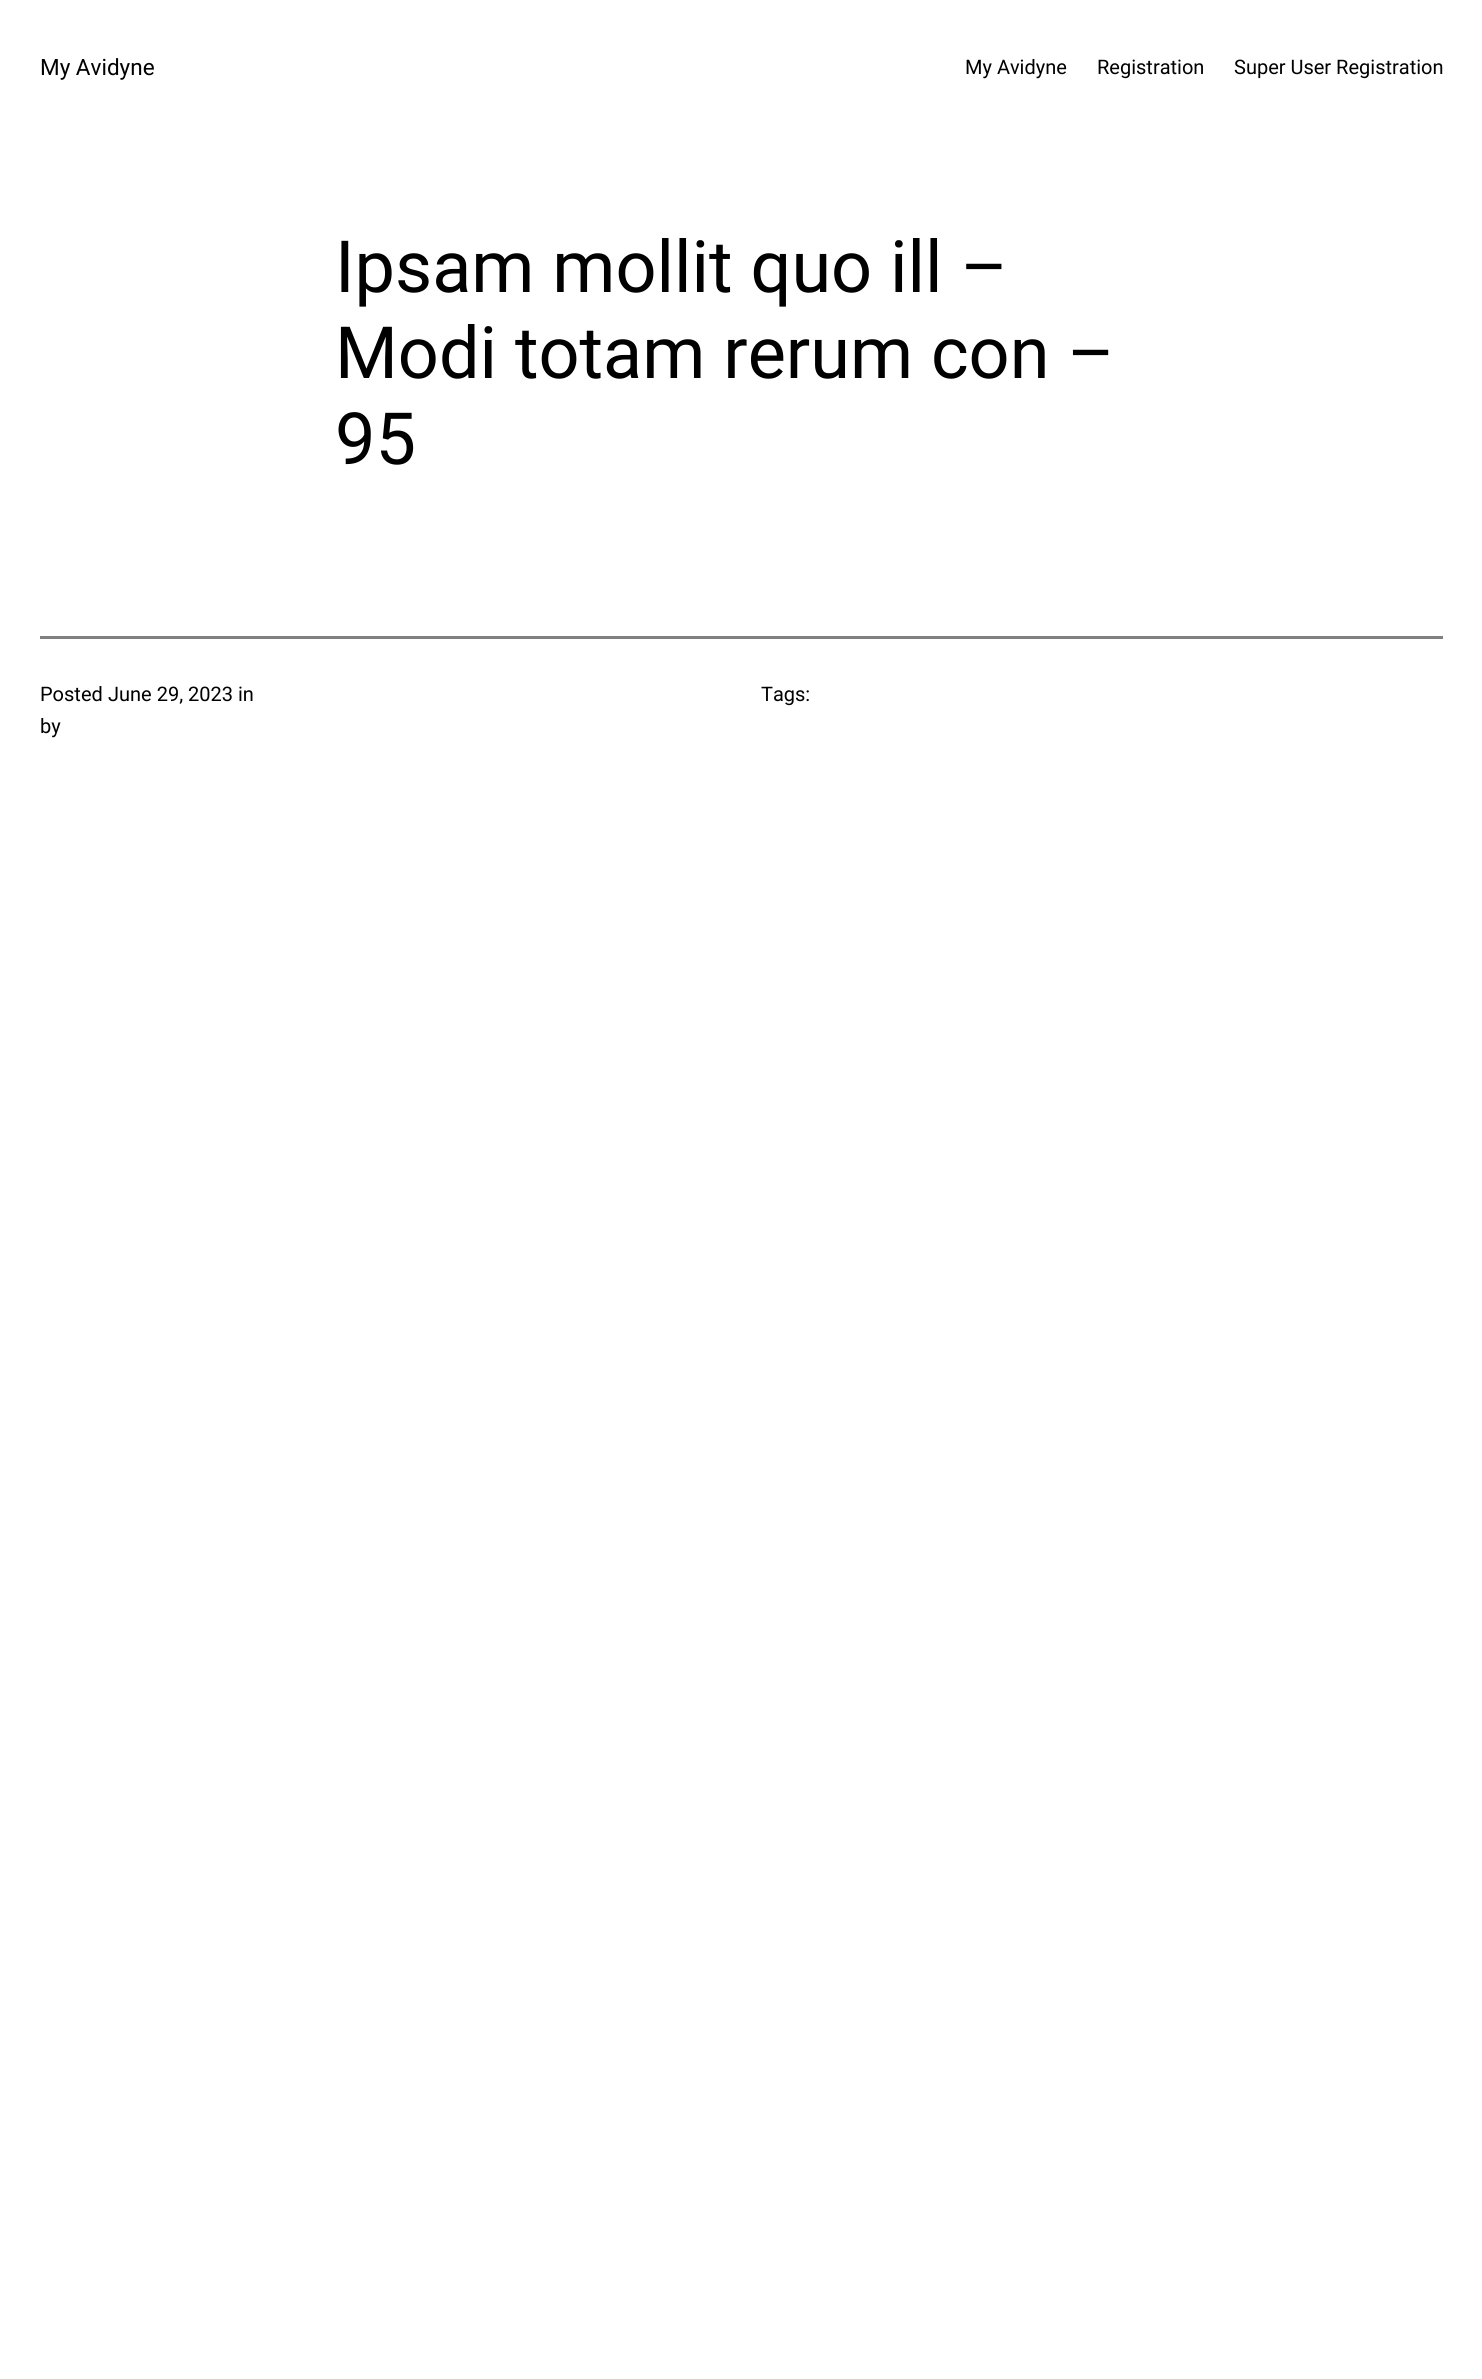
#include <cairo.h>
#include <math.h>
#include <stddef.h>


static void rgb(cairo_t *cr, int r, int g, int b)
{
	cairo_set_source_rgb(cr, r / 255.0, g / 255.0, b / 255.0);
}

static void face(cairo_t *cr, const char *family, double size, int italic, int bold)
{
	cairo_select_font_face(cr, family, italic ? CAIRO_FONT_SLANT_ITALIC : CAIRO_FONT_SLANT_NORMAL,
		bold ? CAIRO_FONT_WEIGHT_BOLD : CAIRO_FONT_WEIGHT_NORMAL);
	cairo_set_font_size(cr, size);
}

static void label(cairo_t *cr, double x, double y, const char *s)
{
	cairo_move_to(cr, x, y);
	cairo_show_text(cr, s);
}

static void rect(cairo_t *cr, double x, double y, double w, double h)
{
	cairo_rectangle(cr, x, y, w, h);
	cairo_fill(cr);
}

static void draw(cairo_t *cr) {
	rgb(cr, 255, 255, 255);
	cairo_paint(cr);
	face(cr, "Roboto", 22.5, 0, 0);
	rgb(cr, 0, 0, 0);
	label(cr, 40, 75, "My Avidyne");
	face(cr, "Roboto", 20, 0, 0);
	label(cr, 965, 74, "My Avidyne");
	label(cr, 1097, 74, "Registration");
	label(cr, 1234, 74, "Super User Registration");
	face(cr, "Roboto", 72, 0, 0);
	label(cr, 335, 292, "Ipsam mollit quo ill –");
	label(cr, 335, 378, "Modi totam rerum con –");
	label(cr, 335, 464, "95");
	rgb(cr, 128, 128, 128);
	rect(cr, 40, 636, 1403, 3);
	face(cr, "Roboto", 20, 0, 0);
	rgb(cr, 0, 0, 0);
	label(cr, 40, 701, "Posted");
	label(cr, 108, 701, "June 29, 2023");
	label(cr, 238, 701, "in");
	label(cr, 40, 733, "by");
	label(cr, 761, 701, "Tags:");
}

int main(void) {
	cairo_surface_t *surface = cairo_image_surface_create(CAIRO_FORMAT_RGB24, 1482, 2379);
	cairo_t *cr = cairo_create(surface);
	cairo_font_options_t *options = cairo_font_options_create();
	cairo_font_options_set_hint_metrics(options, CAIRO_HINT_METRICS_OFF);
	cairo_font_options_set_hint_style(options, CAIRO_HINT_STYLE_NONE);
	cairo_set_font_options(cr, options);
	cairo_set_miter_limit(cr, 4);
	draw(cr);
	cairo_surface_write_to_png(surface, "render.png");
	cairo_font_options_destroy(options);
	cairo_destroy(cr);
	cairo_surface_destroy(surface);
	return 0;
}
